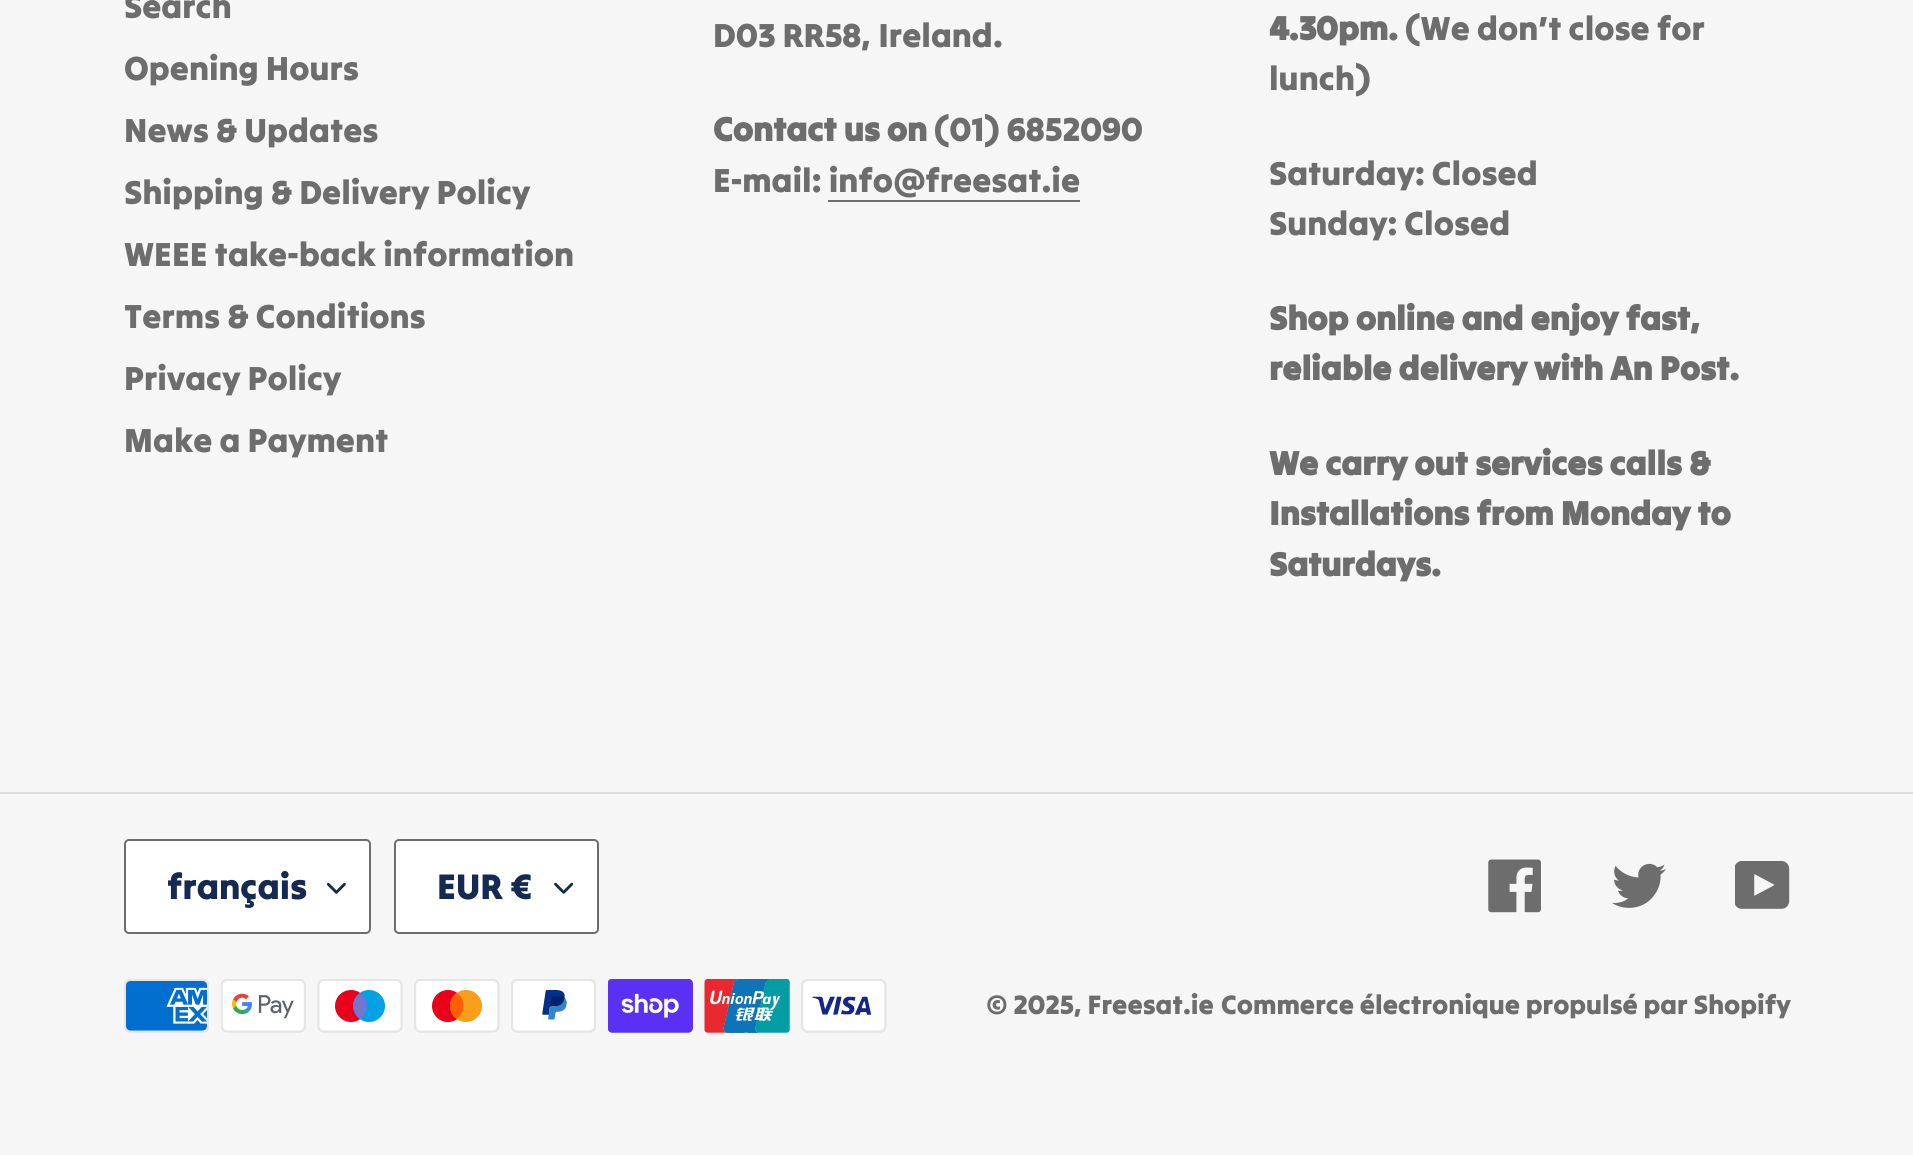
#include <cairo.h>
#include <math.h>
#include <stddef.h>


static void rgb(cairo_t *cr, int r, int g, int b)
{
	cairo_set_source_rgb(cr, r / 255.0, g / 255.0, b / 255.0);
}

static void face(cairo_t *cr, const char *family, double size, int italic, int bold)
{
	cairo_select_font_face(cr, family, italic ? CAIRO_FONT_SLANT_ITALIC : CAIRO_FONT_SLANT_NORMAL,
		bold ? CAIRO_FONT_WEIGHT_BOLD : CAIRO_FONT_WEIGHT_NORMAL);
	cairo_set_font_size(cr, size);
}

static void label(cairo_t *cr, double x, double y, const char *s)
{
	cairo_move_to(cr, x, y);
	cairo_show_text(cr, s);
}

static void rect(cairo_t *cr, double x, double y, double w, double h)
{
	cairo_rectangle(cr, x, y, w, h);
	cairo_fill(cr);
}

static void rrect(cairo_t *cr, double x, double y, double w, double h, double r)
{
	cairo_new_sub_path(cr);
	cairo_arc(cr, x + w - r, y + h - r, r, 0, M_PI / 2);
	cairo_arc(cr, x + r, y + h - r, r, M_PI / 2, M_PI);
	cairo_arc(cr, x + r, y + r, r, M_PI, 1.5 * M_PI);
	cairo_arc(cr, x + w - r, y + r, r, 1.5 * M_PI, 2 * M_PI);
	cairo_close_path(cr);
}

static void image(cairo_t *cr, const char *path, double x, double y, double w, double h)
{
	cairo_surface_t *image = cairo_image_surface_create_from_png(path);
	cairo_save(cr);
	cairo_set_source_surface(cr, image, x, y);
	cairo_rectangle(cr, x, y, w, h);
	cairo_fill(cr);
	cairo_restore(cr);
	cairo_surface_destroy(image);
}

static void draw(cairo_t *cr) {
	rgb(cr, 246, 246, 246);
	cairo_paint(cr);
	face(cr, "Tilt Warp", 33.75, 0, 0);
	rgb(cr, 109, 109, 109);
	label(cr, 124, 18, "Search");
	label(cr, 124, 80, "Opening Hours");
	label(cr, 124, 142, "News & Updates");
	label(cr, 124, 204, "Shipping & Delivery Policy");
	label(cr, 124, 266, "WEEE take-back information");
	label(cr, 124, 328, "Terms & Conditions");
	label(cr, 124, 390, "Privacy Policy");
	label(cr, 124, 452, "Make a Payment");
	label(cr, 713, 47, "D03 RR58, Ireland.");
	face(cr, "Tilt Warp", 33.75, 0, 1);
	label(cr, 713, 141, "Contact us on");
	face(cr, "Tilt Warp", 33.75, 0, 0);
	label(cr, 934, 141, "(01) 6852090");
	label(cr, 713, 192, "E-mail: info@freesat.ie");
	rect(cr, 828, 200, 252, 2);
	face(cr, "Tilt Warp", 33.75, 0, 1);
	label(cr, 1269, 40, "4.30pm.");
	face(cr, "Tilt Warp", 33.75, 0, 0);
	label(cr, 1405, 40, "(We don’t close for");
	label(cr, 1269, 90, "lunch)");
	label(cr, 1269, 185, "Saturday: Closed");
	label(cr, 1269, 235, "Sunday: Closed");
	face(cr, "Tilt Warp", 33.75, 0, 1);
	label(cr, 1269, 330, "Shop online and enjoy fast,");
	label(cr, 1269, 380, "reliable delivery with An Post.");
	label(cr, 1269, 475, "We carry out services calls &");
	label(cr, 1269, 525, "Installations from Monday to");
	label(cr, 1269, 576, "Saturdays.");
	rgb(cr, 221, 221, 221);
	rect(cr, 0, 792, 1913, 2);
	rgb(cr, 255, 255, 255);
	rrect(cr, 124, 839, 247, 95, 5);
	cairo_fill(cr);
	image(cr, "image0.png", 326, 882, 20, 12);
	rrect(cr, 125, 840, 245, 93, 4);
	rgb(cr, 109, 109, 109);
	cairo_stroke(cr);
	face(cr, "Tilt Warp", 36, 0, 0);
	rgb(cr, 22, 41, 80);
	label(cr, 167, 899, "français");
	rgb(cr, 255, 255, 255);
	rrect(cr, 394, 839, 205, 95, 5);
	cairo_fill(cr);
	image(cr, "image1.png", 554, 882, 20, 12);
	rrect(cr, 395, 840, 203, 93, 4);
	rgb(cr, 109, 109, 109);
	cairo_stroke(cr);
	rgb(cr, 22, 41, 80);
	label(cr, 437, 899, "EUR €");
	image(cr, "image2.png", 1488, 859, 53, 54);
	image(cr, "image3.png", 1612, 863, 54, 45);
	image(cr, "image4.png", 1735, 861, 55, 48);
	image(cr, "image5.png", 124, 979, 85, 54);
	image(cr, "image6.png", 221, 979, 85, 54);
	image(cr, "image7.png", 317, 979, 86, 54);
	image(cr, "image8.png", 414, 979, 86, 54);
	image(cr, "image9.png", 511, 979, 85, 54);
	image(cr, "image10.png", 608, 979, 85, 54);
	image(cr, "image11.png", 704, 979, 86, 54);
	image(cr, "image12.png", 801, 979, 86, 54);
	face(cr, "Tilt Warp", 27, 0, 0);
	rgb(cr, 109, 109, 109);
	label(cr, 986, 1014, "© 2025, Freesat.ie");
	label(cr, 1221, 1014, "Commerce électronique propulsé par Shopify");
}

int main(void) {
	cairo_surface_t *surface = cairo_image_surface_create(CAIRO_FORMAT_RGB24, 1913, 1155);
	cairo_t *cr = cairo_create(surface);
	cairo_font_options_t *options = cairo_font_options_create();
	cairo_font_options_set_hint_metrics(options, CAIRO_HINT_METRICS_OFF);
	cairo_font_options_set_hint_style(options, CAIRO_HINT_STYLE_NONE);
	cairo_set_font_options(cr, options);
	cairo_set_miter_limit(cr, 4);
	draw(cr);
	cairo_surface_write_to_png(surface, "render.png");
	cairo_font_options_destroy(options);
	cairo_destroy(cr);
	cairo_surface_destroy(surface);
	return 0;
}
